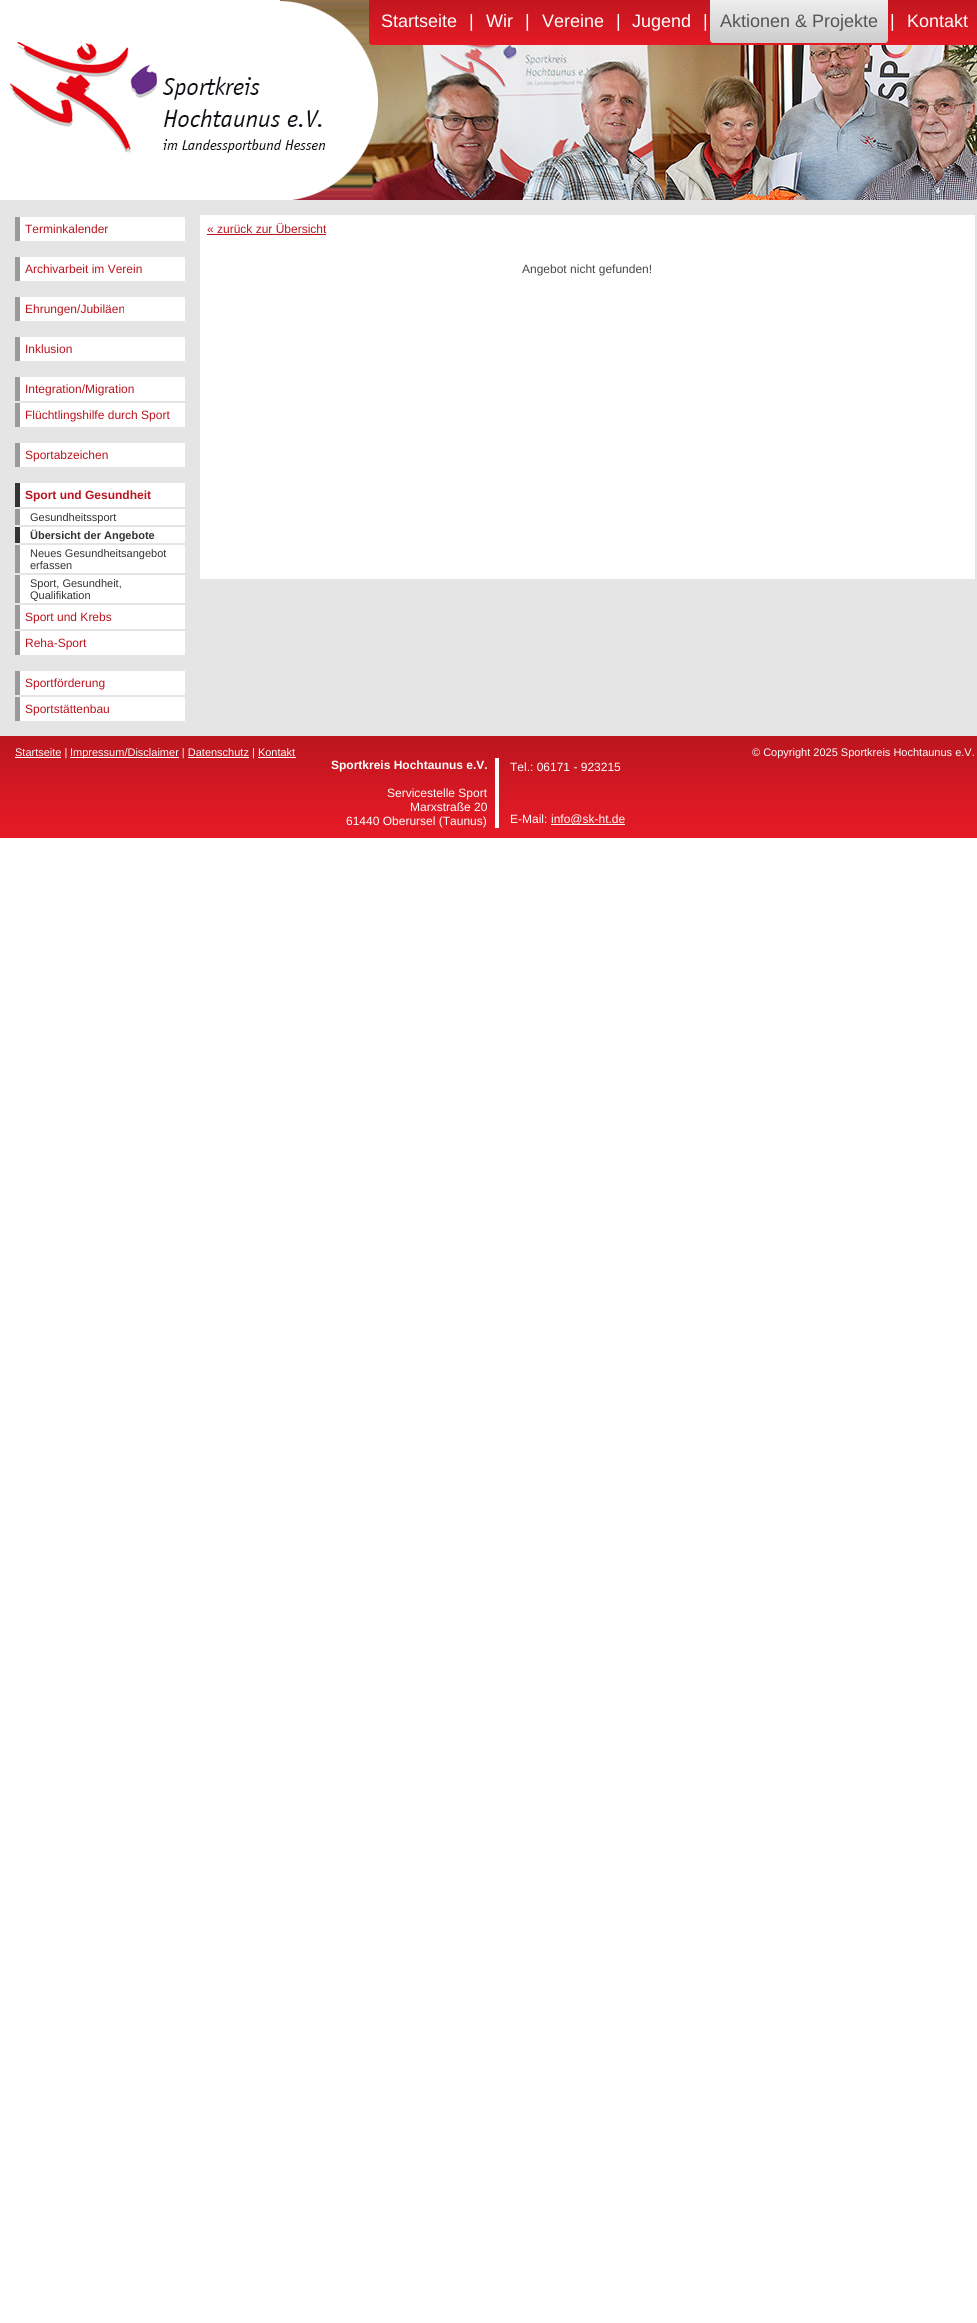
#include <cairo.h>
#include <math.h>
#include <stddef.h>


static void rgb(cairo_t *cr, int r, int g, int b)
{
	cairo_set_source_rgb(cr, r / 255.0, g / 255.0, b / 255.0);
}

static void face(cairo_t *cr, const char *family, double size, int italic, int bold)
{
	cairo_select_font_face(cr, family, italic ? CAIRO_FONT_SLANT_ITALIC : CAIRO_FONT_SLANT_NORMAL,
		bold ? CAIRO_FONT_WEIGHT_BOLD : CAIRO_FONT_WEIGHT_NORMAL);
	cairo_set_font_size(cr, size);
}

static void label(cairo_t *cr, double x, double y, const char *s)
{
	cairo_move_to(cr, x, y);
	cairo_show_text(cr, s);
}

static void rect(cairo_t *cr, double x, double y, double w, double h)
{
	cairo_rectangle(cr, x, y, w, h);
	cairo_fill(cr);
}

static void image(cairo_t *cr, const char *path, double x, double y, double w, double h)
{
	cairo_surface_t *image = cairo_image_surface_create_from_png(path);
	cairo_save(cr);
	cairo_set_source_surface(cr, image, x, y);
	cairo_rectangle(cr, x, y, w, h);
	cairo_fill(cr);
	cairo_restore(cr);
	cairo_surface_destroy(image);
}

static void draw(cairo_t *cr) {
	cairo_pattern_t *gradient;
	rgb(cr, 255, 255, 255);
	cairo_paint(cr);
	image(cr, "image0.png", 280, 0, 697, 200);
	image(cr, "image1.png", 0, 0, 378, 200);
	gradient = cairo_pattern_create_linear(675, 0, 675, 45);
	cairo_pattern_add_color_stop_rgba(gradient, 0, 0.761, 0.086, 0.122, 1);
	cairo_pattern_add_color_stop_rgba(gradient, 1, 0.898, 0.102, 0.145, 1);
	cairo_set_source(cr, gradient);
	cairo_pattern_destroy(gradient);
	cairo_new_path(cr);
	cairo_move_to(cr, 369, 0);
	cairo_line_to(cr, 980, 0);
	cairo_line_to(cr, 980, 42);
	cairo_curve_to(cr, 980, 43.5, 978.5, 45, 977, 45);
	cairo_line_to(cr, 372, 45);
	cairo_curve_to(cr, 370.5, 45, 369, 43.5, 369, 42);
	cairo_close_path(cr);
	cairo_fill(cr);
	face(cr, "Liberation Sans", 18, 0, 0);
	rgb(cr, 255, 255, 255);
	label(cr, 381, 27, "Startseite");
	label(cr, 469, 27, "|");
	label(cr, 486, 27, "Wir");
	label(cr, 525, 27, "|");
	label(cr, 542, 27, "Vereine");
	label(cr, 616, 27, "|");
	label(cr, 632, 27, "Jugend");
	label(cr, 703, 27, "|");
	gradient = cairo_pattern_create_linear(799, 0, 799, 43);
	cairo_pattern_add_color_stop_rgba(gradient, 0, 0.933, 0.933, 0.933, 1);
	cairo_pattern_add_color_stop_rgba(gradient, 1, 0.8, 0.8, 0.8, 1);
	cairo_set_source(cr, gradient);
	cairo_pattern_destroy(gradient);
	cairo_new_path(cr);
	cairo_move_to(cr, 710, 0);
	cairo_line_to(cr, 888, 0);
	cairo_line_to(cr, 888, 40);
	cairo_curve_to(cr, 888, 41.5, 886.5, 43, 885, 43);
	cairo_line_to(cr, 713, 43);
	cairo_curve_to(cr, 711.5, 43, 710, 41.5, 710, 40);
	cairo_close_path(cr);
	cairo_fill(cr);
	rgb(cr, 85, 85, 85);
	label(cr, 720, 27, "Aktionen & Projekte");
	rgb(cr, 255, 255, 255);
	label(cr, 890, 27, "|");
	label(cr, 907, 27, "Kontakt");
	rgb(cr, 229, 229, 229);
	rect(cr, 0, 200, 977, 536);
	rgb(cr, 255, 255, 255);
	rect(cr, 20, 217, 165, 24);
	rgb(cr, 153, 153, 153);
	rect(cr, 15, 217, 5, 24);
	face(cr, "Liberation Sans", 12, 0, 0);
	rgb(cr, 186, 21, 30);
	label(cr, 25, 233, "Terminkalender");
	rgb(cr, 255, 255, 255);
	rect(cr, 20, 257, 165, 24);
	rgb(cr, 153, 153, 153);
	rect(cr, 15, 257, 5, 24);
	rgb(cr, 186, 21, 30);
	label(cr, 25, 273, "Archivarbeit im Verein");
	rgb(cr, 255, 255, 255);
	rect(cr, 20, 297, 165, 24);
	rgb(cr, 153, 153, 153);
	rect(cr, 15, 297, 5, 24);
	rgb(cr, 186, 21, 30);
	label(cr, 25, 313, "Ehrungen/Jubiläen");
	rgb(cr, 255, 255, 255);
	rect(cr, 20, 337, 165, 24);
	rgb(cr, 153, 153, 153);
	rect(cr, 15, 337, 5, 24);
	rgb(cr, 186, 21, 30);
	label(cr, 25, 353, "Inklusion");
	rgb(cr, 255, 255, 255);
	rect(cr, 20, 377, 165, 24);
	rgb(cr, 153, 153, 153);
	rect(cr, 15, 377, 5, 24);
	rgb(cr, 186, 21, 30);
	label(cr, 25, 393, "Integration/Migration");
	rgb(cr, 255, 255, 255);
	rect(cr, 20, 403, 165, 24);
	rgb(cr, 153, 153, 153);
	rect(cr, 15, 403, 5, 24);
	rgb(cr, 186, 21, 30);
	label(cr, 25, 419, "Flüchtlingshilfe durch Sport");
	rgb(cr, 255, 255, 255);
	rect(cr, 20, 443, 165, 24);
	rgb(cr, 153, 153, 153);
	rect(cr, 15, 443, 5, 24);
	rgb(cr, 186, 21, 30);
	label(cr, 25, 459, "Sportabzeichen");
	rgb(cr, 255, 255, 255);
	rect(cr, 20, 483, 165, 24);
	rgb(cr, 51, 51, 51);
	rect(cr, 15, 483, 5, 24);
	face(cr, "Liberation Sans", 12, 0, 1);
	rgb(cr, 186, 21, 30);
	label(cr, 25, 499, "Sport und Gesundheit");
	rgb(cr, 255, 255, 255);
	rect(cr, 20, 509, 165, 16);
	rgb(cr, 153, 153, 153);
	rect(cr, 15, 509, 5, 16);
	face(cr, "Liberation Sans", 11, 0, 0);
	rgb(cr, 51, 51, 51);
	label(cr, 30, 521, "Gesundheitssport");
	rgb(cr, 255, 255, 255);
	rect(cr, 20, 527, 165, 16);
	rgb(cr, 51, 51, 51);
	rect(cr, 15, 527, 5, 16);
	face(cr, "Liberation Sans", 11, 0, 1);
	label(cr, 30, 539, "Übersicht der Angebote");
	rgb(cr, 255, 255, 255);
	rect(cr, 20, 545, 165, 28);
	rgb(cr, 153, 153, 153);
	rect(cr, 15, 545, 5, 28);
	face(cr, "Liberation Sans", 11, 0, 0);
	rgb(cr, 51, 51, 51);
	label(cr, 30, 557, "Neues Gesundheitsangebot");
	label(cr, 30, 569, "erfassen");
	rgb(cr, 255, 255, 255);
	rect(cr, 20, 575, 165, 28);
	rgb(cr, 153, 153, 153);
	rect(cr, 15, 575, 5, 28);
	rgb(cr, 51, 51, 51);
	label(cr, 30, 587, "Sport, Gesundheit,");
	label(cr, 30, 599, "Qualifikation");
	rgb(cr, 255, 255, 255);
	rect(cr, 20, 605, 165, 24);
	rgb(cr, 153, 153, 153);
	rect(cr, 15, 605, 5, 24);
	face(cr, "Liberation Sans", 12, 0, 0);
	rgb(cr, 186, 21, 30);
	label(cr, 25, 621, "Sport und Krebs");
	rgb(cr, 255, 255, 255);
	rect(cr, 20, 631, 165, 24);
	rgb(cr, 153, 153, 153);
	rect(cr, 15, 631, 5, 24);
	rgb(cr, 186, 21, 30);
	label(cr, 25, 647, "Reha-Sport");
	rgb(cr, 255, 255, 255);
	rect(cr, 20, 671, 165, 24);
	rgb(cr, 153, 153, 153);
	rect(cr, 15, 671, 5, 24);
	rgb(cr, 186, 21, 30);
	label(cr, 25, 687, "Sportförderung");
	rgb(cr, 255, 255, 255);
	rect(cr, 20, 697, 165, 24);
	rgb(cr, 153, 153, 153);
	rect(cr, 15, 697, 5, 24);
	rgb(cr, 186, 21, 30);
	label(cr, 25, 713, "Sportstättenbau");
	rgb(cr, 255, 255, 255);
	rect(cr, 200, 215, 775, 364);
	rgb(cr, 186, 21, 30);
	label(cr, 207, 233, "« zurück zur Übersicht");
	rect(cr, 207, 234, 119, 1);
	rgb(cr, 71, 71, 71);
	label(cr, 522, 273, "Angebot nicht gefunden!");
	image(cr, "image2.png", 0, 736, 977, 102);
	rgb(cr, 255, 255, 255);
	rect(cr, 15, 757, 46, 1);
	face(cr, "Liberation Sans", 11, 0, 0);
	label(cr, 15, 756, "Startseite |");
	rect(cr, 70, 757, 109, 1);
	label(cr, 70, 756, "Impressum/Disclaimer | Datenschutz | Kontakt");
	rect(cr, 188, 757, 61, 1);
	rect(cr, 258, 757, 38, 1);
	label(cr, 752, 756, "© Copyright 2025 Sportkreis Hochtaunus e.V.");
	face(cr, "Liberation Sans", 12, 0, 1);
	label(cr, 331, 769, "Sportkreis Hochtaunus e.V.");
	face(cr, "Liberation Sans", 12, 0, 0);
	label(cr, 387, 797, "Servicestelle Sport");
	label(cr, 410, 811, "Marxstraße 20");
	label(cr, 346, 825, "61440 Oberursel (Taunus)");
	rect(cr, 495, 758, 4, 70);
	label(cr, 510, 771, "Tel.: 06171 - 923215");
	label(cr, 510, 823, "E-Mail:");
	rect(cr, 551, 824, 74, 1);
	label(cr, 551, 823, "info@sk-ht.de");
}

int main(void) {
	cairo_surface_t *surface = cairo_image_surface_create(CAIRO_FORMAT_RGB24, 977, 2323);
	cairo_t *cr = cairo_create(surface);
	cairo_font_options_t *options = cairo_font_options_create();
	cairo_font_options_set_hint_metrics(options, CAIRO_HINT_METRICS_OFF);
	cairo_font_options_set_hint_style(options, CAIRO_HINT_STYLE_NONE);
	cairo_set_font_options(cr, options);
	cairo_set_miter_limit(cr, 4);
	draw(cr);
	cairo_surface_write_to_png(surface, "render.png");
	cairo_font_options_destroy(options);
	cairo_destroy(cr);
	cairo_surface_destroy(surface);
	return 0;
}
